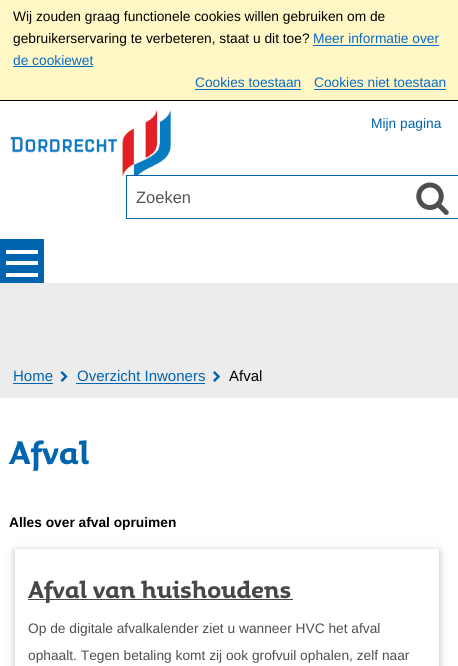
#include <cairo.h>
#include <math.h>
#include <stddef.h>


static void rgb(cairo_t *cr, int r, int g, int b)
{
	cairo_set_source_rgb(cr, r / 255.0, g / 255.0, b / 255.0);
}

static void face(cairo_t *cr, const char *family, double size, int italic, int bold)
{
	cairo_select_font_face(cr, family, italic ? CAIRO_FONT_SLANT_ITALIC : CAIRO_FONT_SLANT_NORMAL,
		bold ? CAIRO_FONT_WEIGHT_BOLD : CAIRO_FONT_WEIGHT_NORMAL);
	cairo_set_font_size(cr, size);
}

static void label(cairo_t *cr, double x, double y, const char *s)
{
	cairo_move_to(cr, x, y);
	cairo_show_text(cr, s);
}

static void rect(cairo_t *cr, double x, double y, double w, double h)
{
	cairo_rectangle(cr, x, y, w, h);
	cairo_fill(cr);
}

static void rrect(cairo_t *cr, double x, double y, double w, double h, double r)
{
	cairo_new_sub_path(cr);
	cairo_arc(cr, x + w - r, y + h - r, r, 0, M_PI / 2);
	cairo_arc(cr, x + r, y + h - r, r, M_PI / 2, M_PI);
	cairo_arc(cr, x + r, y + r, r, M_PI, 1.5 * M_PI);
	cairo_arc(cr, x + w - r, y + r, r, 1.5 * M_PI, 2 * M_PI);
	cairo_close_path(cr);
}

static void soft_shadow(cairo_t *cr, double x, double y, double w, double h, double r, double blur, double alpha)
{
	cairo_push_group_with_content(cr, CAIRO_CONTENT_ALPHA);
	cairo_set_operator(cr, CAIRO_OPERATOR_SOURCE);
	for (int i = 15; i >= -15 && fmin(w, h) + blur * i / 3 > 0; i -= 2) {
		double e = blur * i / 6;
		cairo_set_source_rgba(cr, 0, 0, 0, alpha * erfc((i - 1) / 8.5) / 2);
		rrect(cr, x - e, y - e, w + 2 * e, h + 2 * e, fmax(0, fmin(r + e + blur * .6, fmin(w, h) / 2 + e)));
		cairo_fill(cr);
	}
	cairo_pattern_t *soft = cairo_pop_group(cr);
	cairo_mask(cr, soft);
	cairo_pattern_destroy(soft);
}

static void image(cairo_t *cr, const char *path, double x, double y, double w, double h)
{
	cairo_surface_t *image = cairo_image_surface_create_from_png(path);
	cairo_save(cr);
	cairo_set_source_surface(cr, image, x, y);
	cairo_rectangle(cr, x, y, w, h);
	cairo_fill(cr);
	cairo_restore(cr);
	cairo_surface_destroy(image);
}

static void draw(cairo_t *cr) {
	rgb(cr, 255, 255, 255);
	cairo_paint(cr);
	rgb(cr, 255, 247, 197);
	rect(cr, 0, 0, 458, 100);
	rgb(cr, 0, 0, 0);
	rect(cr, 0, 100, 458, 1);
	face(cr, "Liberation Sans", 13.75, 0, 0);
	label(cr, 13, 21, "Wij zouden graag functionele cookies willen gebruiken om de");
	label(cr, 13, 43, "gebruikerservaring te verbeteren, staat u dit toe?");
	rgb(cr, 8, 107, 200);
	label(cr, 313, 43, "Meer informatie over");
	rect(cr, 313, 45, 126, 1);
	label(cr, 13, 65, "de cookiewet");
	rect(cr, 13, 66, 80, 1);
	label(cr, 195, 87, "Cookies toestaan");
	rect(cr, 195, 89, 106, 1);
	label(cr, 314, 87, "Cookies niet toestaan");
	rect(cr, 314, 89, 132, 1);
	image(cr, "image0.png", 10, 110, 161, 72);
	rgb(cr, 0, 100, 175);
	label(cr, 371, 128, "Mijn pagina");
	cairo_rectangle(cr, 126.5, 175.5, 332, 43);
	cairo_set_line_width(cr, 1);
	cairo_stroke(cr);
	rgb(cr, 255, 255, 255);
	rect(cr, 133, 176, 5, 6);
	face(cr, "Liberation Sans", 16.5, 0, 0);
	rgb(cr, 85, 85, 85);
	label(cr, 136, 203, "Zoeken");
	image(cr, "image1.png", 416, 182, 33, 33);
	rgb(cr, 0, 100, 175);
	rect(cr, 0, 239, 44, 44);
	rgb(cr, 255, 255, 255);
	rect(cr, 6, 273, 32, 4);
	rect(cr, 6, 261, 32, 4);
	rect(cr, 6, 250, 32, 4);
	rgb(cr, 236, 236, 236);
	rect(cr, 0, 283, 458, 115);
	face(cr, "Liberation Sans", 15, 0, 0);
	rgb(cr, 0, 100, 175);
	label(cr, 13, 381, "Home");
	rect(cr, 13, 383, 40, 1);
	image(cr, "image2.png", 60, 371, 8, 11);
	label(cr, 77, 381, "Overzicht Inwoners");
	rect(cr, 76, 383, 129, 1);
	image(cr, "image3.png", 213, 371, 7, 11);
	rgb(cr, 0, 0, 0);
	label(cr, 229, 381, "Afval");
	face(cr, "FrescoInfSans", 31.5, 0, 1);
	rgb(cr, 0, 100, 175);
	label(cr, 9, 464, "Afval");
	face(cr, "Liberation Sans", 13.75, 0, 1);
	rgb(cr, 0, 0, 0);
	label(cr, 9, 527, "Alles over afval opruimen");
	cairo_save(cr);
	cairo_set_fill_rule(cr, CAIRO_FILL_RULE_EVEN_ODD);
	cairo_new_path(cr);
	cairo_move_to(cr, 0, 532);
	cairo_line_to(cr, 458, 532);
	cairo_line_to(cr, 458, 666);
	cairo_line_to(cr, 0, 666);
	cairo_close_path(cr);
	cairo_move_to(cr, 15, 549);
	cairo_line_to(cr, 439, 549);
	cairo_line_to(cr, 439, 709);
	cairo_line_to(cr, 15, 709);
	cairo_close_path(cr);
	cairo_clip(cr);
	rgb(cr, 0, 0, 0);
	soft_shadow(cr, 15, 551, 424, 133, 0, 6, 0.12);
	cairo_restore(cr);
	cairo_save(cr);
	cairo_set_fill_rule(cr, CAIRO_FILL_RULE_EVEN_ODD);
	cairo_new_path(cr);
	cairo_move_to(cr, 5, 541);
	cairo_line_to(cr, 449, 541);
	cairo_line_to(cr, 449, 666);
	cairo_line_to(cr, 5, 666);
	cairo_close_path(cr);
	cairo_move_to(cr, 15, 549);
	cairo_line_to(cr, 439, 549);
	cairo_line_to(cr, 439, 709);
	cairo_line_to(cr, 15, 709);
	cairo_close_path(cr);
	cairo_clip(cr);
	rgb(cr, 0, 0, 0);
	soft_shadow(cr, 15, 551, 424, 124, 0, 3, 0.16);
	cairo_restore(cr);
	rgb(cr, 71, 71, 71);
	rect(cr, 28, 599, 265, 1);
	face(cr, "FrescoInfSans", 23.25, 0, 1);
	label(cr, 28, 598, "Afval van huishoudens");
	face(cr, "Liberation Sans", 13.75, 0, 0);
	rgb(cr, 79, 79, 79);
	label(cr, 28, 633, "Op de digitale afvalkalender ziet u wanneer HVC het afval");
	label(cr, 28, 660, "ophaalt. Tegen betaling komt zij ook grofvuil ophalen, zelf naar");
}

int main(void) {
	cairo_surface_t *surface = cairo_image_surface_create(CAIRO_FORMAT_RGB24, 458, 666);
	cairo_t *cr = cairo_create(surface);
	cairo_font_options_t *options = cairo_font_options_create();
	cairo_font_options_set_hint_metrics(options, CAIRO_HINT_METRICS_OFF);
	cairo_font_options_set_hint_style(options, CAIRO_HINT_STYLE_NONE);
	cairo_set_font_options(cr, options);
	cairo_set_miter_limit(cr, 4);
	draw(cr);
	cairo_surface_write_to_png(surface, "render.png");
	cairo_font_options_destroy(options);
	cairo_destroy(cr);
	cairo_surface_destroy(surface);
	return 0;
}
